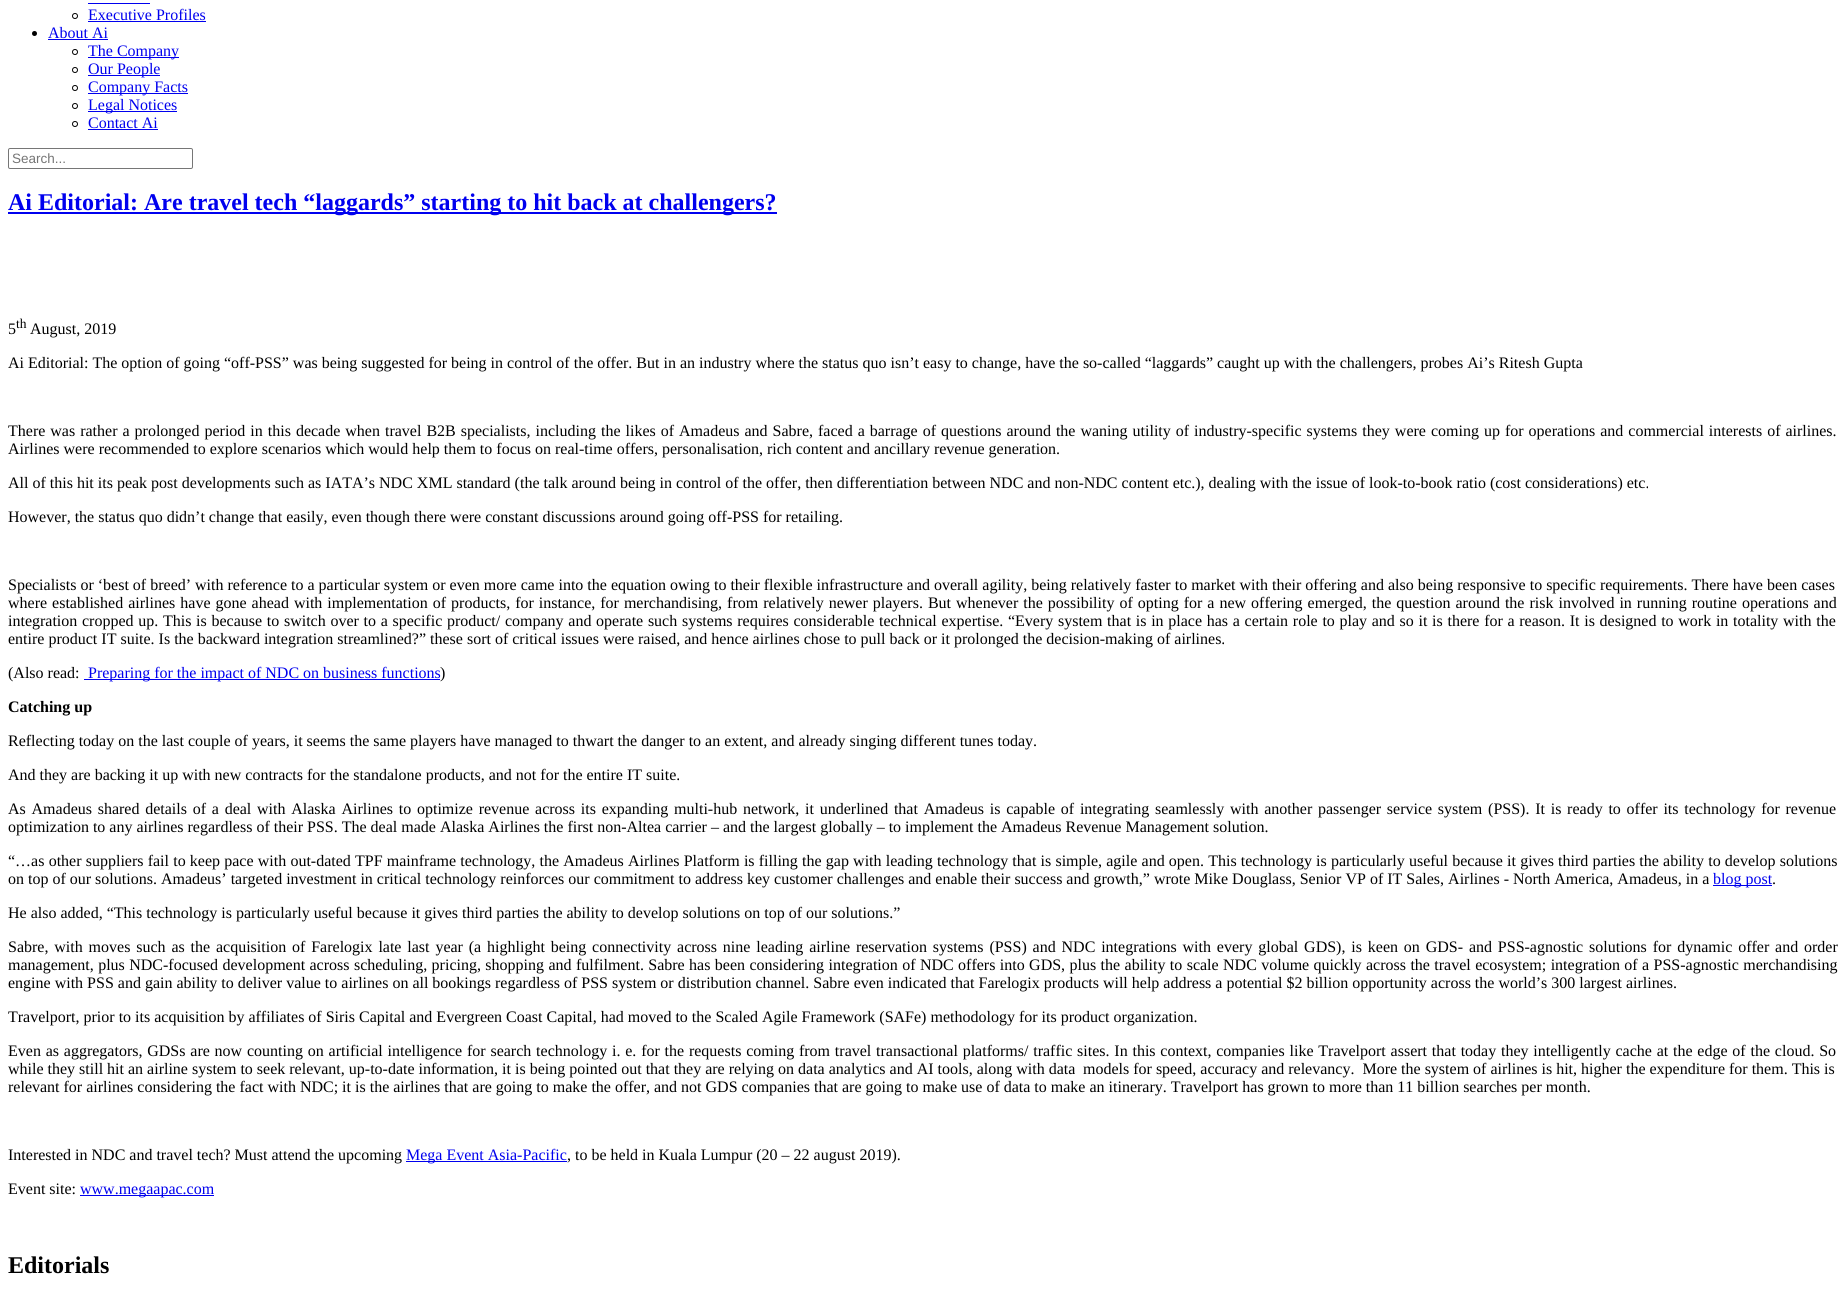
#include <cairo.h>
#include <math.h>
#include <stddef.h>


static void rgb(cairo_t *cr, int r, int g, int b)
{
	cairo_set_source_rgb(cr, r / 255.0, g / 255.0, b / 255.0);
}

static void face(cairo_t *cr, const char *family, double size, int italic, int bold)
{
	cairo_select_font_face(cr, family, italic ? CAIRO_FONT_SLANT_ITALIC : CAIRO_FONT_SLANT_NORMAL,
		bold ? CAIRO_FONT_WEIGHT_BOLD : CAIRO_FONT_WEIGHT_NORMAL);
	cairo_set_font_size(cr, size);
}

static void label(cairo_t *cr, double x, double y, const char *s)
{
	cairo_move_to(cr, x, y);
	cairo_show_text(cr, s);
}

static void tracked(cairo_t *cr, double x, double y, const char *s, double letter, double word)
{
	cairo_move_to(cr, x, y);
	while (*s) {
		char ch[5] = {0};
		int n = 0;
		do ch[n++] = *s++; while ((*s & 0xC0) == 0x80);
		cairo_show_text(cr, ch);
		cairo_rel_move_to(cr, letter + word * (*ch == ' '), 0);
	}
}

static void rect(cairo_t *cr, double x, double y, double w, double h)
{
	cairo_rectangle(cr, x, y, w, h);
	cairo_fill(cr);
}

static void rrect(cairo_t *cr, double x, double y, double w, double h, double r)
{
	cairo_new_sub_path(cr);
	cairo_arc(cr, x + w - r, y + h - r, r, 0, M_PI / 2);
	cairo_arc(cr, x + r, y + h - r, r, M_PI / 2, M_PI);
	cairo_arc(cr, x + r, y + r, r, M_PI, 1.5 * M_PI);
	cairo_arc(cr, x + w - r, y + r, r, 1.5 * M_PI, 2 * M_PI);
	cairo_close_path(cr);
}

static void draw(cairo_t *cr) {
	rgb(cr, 255, 255, 255);
	cairo_paint(cr);
	rgb(cr, 0, 0, 238);
	rect(cr, 88, 3, 62, 1);
	cairo_arc(cr, 75, 16, 2.5, 0, 2 * M_PI);
	rgb(cr, 0, 0, 0);
	cairo_set_line_width(cr, 1);
	cairo_stroke(cr);
	face(cr, "Liberation Serif", 16, 0, 0);
	rgb(cr, 0, 0, 238);
	label(cr, 88, 20, "Executive Profiles");
	rect(cr, 88, 21, 118, 1);
	rgb(cr, 0, 0, 0);
	cairo_new_path(cr);
	cairo_arc(cr, 34.5, 33.5, 2.5, 0, 2 * M_PI);
	cairo_fill(cr);
	rgb(cr, 0, 0, 238);
	label(cr, 48, 38, "About Ai");
	rect(cr, 48, 39, 60, 1);
	cairo_new_path(cr);
	cairo_arc(cr, 75, 52, 2.5, 0, 2 * M_PI);
	rgb(cr, 0, 0, 0);
	cairo_stroke(cr);
	rgb(cr, 0, 0, 238);
	rect(cr, 88, 57, 91, 1);
	label(cr, 88, 56, "The Company");
	cairo_new_path(cr);
	cairo_arc(cr, 75, 70, 2.5, 0, 2 * M_PI);
	rgb(cr, 0, 0, 0);
	cairo_stroke(cr);
	rgb(cr, 0, 0, 238);
	rect(cr, 88, 75, 72, 1);
	label(cr, 88, 74, "Our People");
	cairo_new_path(cr);
	cairo_arc(cr, 75, 88, 2.5, 0, 2 * M_PI);
	rgb(cr, 0, 0, 0);
	cairo_stroke(cr);
	rgb(cr, 0, 0, 238);
	rect(cr, 88, 93, 100, 1);
	label(cr, 88, 92, "Company Facts");
	cairo_new_path(cr);
	cairo_arc(cr, 75, 106, 2.5, 0, 2 * M_PI);
	rgb(cr, 0, 0, 0);
	cairo_stroke(cr);
	rgb(cr, 0, 0, 238);
	rect(cr, 88, 111, 89, 1);
	label(cr, 88, 110, "Legal Notices");
	cairo_new_path(cr);
	cairo_arc(cr, 75, 124, 2.5, 0, 2 * M_PI);
	rgb(cr, 0, 0, 0);
	cairo_stroke(cr);
	rgb(cr, 0, 0, 238);
	label(cr, 88, 128, "Contact Ai");
	rect(cr, 88, 129, 70, 1);
	rrect(cr, 8.5, 148.5, 184, 20, 1.5);
	rgb(cr, 118, 118, 118);
	cairo_stroke(cr);
	face(cr, "Liberation Sans", 13.5, 0, 0);
	rgb(cr, 117, 117, 117);
	label(cr, 12, 163, "Search...");
	rgb(cr, 0, 0, 238);
	rect(cr, 8, 212, 769, 2);
	face(cr, "Liberation Serif", 24, 0, 1);
	label(cr, 8, 210, "Ai Editorial: Are travel tech “laggards” starting to hit back at challengers?");
	face(cr, "Liberation Serif", 16, 0, 0);
	rgb(cr, 0, 0, 0);
	label(cr, 8, 334, "5");
	face(cr, "Liberation Serif", 13.5, 0, 0);
	label(cr, 16, 328, "th");
	face(cr, "Liberation Serif", 16, 0, 0);
	label(cr, 30, 334, "August, 2019");
	label(cr, 8, 368, "Ai Editorial: The option of going “off-PSS” was being suggested for being in control of the offer. But in an industry where the status quo isn’t easy to change, have the so-called “laggards” caught up with the challengers, probes Ai’s Ritesh Gupta");
	tracked(cr, 8, 436, "There was rather a prolonged period in this decade when travel B2B specialists, including the likes of Amadeus and Sabre, faced a barrage of questions around the waning utility of industry-specific systems they were coming up for operations and commercial interests of airlines.", 0, 1);
	label(cr, 8, 454, "Airlines were recommended to explore scenarios which would help them to focus on real-time offers, personalisation, rich content and ancillary revenue generation.");
	label(cr, 8, 488, "All of this hit its peak post developments such as IATA’s NDC XML standard (the talk around being in control of the offer, then differentiation between NDC and non-NDC content etc.), dealing with the issue of look-to-book ratio (cost considerations) etc.");
	label(cr, 8, 522, "However, the status quo didn’t change that easily, even though there were constant discussions around going off-PSS for retailing.");
	label(cr, 8, 590, "Specialists or ‘best of breed’ with reference to a particular system or even more came into the equation owing to their flexible infrastructure and overall agility, being relatively faster to market with their offering and also being responsive to specific requirements. There have been cases");
	tracked(cr, 8, 608, "where established airlines have gone ahead with implementation of products, for instance, for merchandising, from relatively newer players. But whenever the possibility of opting for a new offering emerged, the question around the risk involved in running routine operations and", 0, 1);
	tracked(cr, 8, 626, "integration cropped up. This is because to switch over to a specific product/ company and operate such systems requires considerable technical expertise. “Every system that is in place has a certain role to play and so it is there for a reason. It is designed to work in totality with the", 0, 0.7);
	label(cr, 8, 644, "entire product IT suite. Is the backward integration streamlined?” these sort of critical issues were raised, and hence airlines chose to pull back or it prolonged the decision-making of airlines.");
	label(cr, 8, 678, "(Also read:");
	rgb(cr, 0, 0, 238);
	rect(cr, 84, 679, 356, 1);
	label(cr, 88, 678, "Preparing for the impact of NDC on business functions");
	rgb(cr, 0, 0, 0);
	label(cr, 440, 678, ")");
	face(cr, "Liberation Serif", 16, 0, 1);
	label(cr, 8, 712, "Catching up");
	face(cr, "Liberation Serif", 16, 0, 0);
	label(cr, 8, 746, "Reflecting today on the last couple of years, it seems the same players have managed to thwart the danger to an extent, and already singing different tunes today.");
	label(cr, 8, 780, "And they are backing it up with new contracts for the standalone products, and not for the entire IT suite.");
	tracked(cr, 8, 814, "As Amadeus shared details of a deal with Alaska Airlines to optimize revenue across its expanding multi-hub network, it underlined that Amadeus is capable of integrating seamlessly with another passenger service system (PSS). It is ready to offer its technology for revenue", 0, 1.75);
	label(cr, 8, 832, "optimization to any airlines regardless of their PSS. The deal made Alaska Airlines the first non-Altea carrier – and the largest globally – to implement the Amadeus Revenue Management solution.");
	tracked(cr, 8, 866, "“…as other suppliers fail to keep pace with out-dated TPF mainframe technology, the Amadeus Airlines Platform is filling the gap with leading technology that is simple, agile and open. This technology is particularly useful because it gives third parties the ability to develop solutions", 0, 0.2);
	label(cr, 8, 884, "on top of our solutions. Amadeus’ targeted investment in critical technology reinforces our commitment to address key customer challenges and enable their success and growth,” wrote Mike Douglass, Senior VP of IT Sales, Airlines - North America, Amadeus, in a");
	rgb(cr, 0, 0, 238);
	rect(cr, 1713, 885, 59, 1);
	label(cr, 1713, 884, "blog post");
	rgb(cr, 0, 0, 0);
	label(cr, 1772, 884, ".");
	label(cr, 8, 918, "He also added, “This technology is particularly useful because it gives third parties the ability to develop solutions on top of our solutions.”");
	tracked(cr, 8, 952, "Sabre, with moves such as the acquisition of Farelogix late last year (a highlight being connectivity across nine leading airline reservation systems (PSS) and NDC integrations with every global GDS), is keen on GDS- and PSS-agnostic solutions for dynamic offer and order", 0, 1.85);
	tracked(cr, 8, 970, "management, plus NDC-focused development across scheduling, pricing, shopping and fulfilment. Sabre has been considering integration of NDC offers into GDS, plus the ability to scale NDC volume quickly across the travel ecosystem; integration of a PSS-agnostic merchandising", 0, 0.4);
	label(cr, 8, 988, "engine with PSS and gain ability to deliver value to airlines on all bookings regardless of PSS system or distribution channel. Sabre even indicated that Farelogix products will help address a potential $2 billion opportunity across the world’s 300 largest airlines.");
	label(cr, 8, 1022, "Travelport, prior to its acquisition by affiliates of Siris Capital and Evergreen Coast Capital, had moved to the Scaled Agile Framework (SAFe) methodology for its product organization.");
	tracked(cr, 8, 1056, "Even as aggregators, GDSs are now counting on artificial intelligence for search technology i. e. for the requests coming from travel transactional platforms/ traffic sites. In this context, companies like Travelport assert that today they intelligently cache at the edge of the cloud. So", 0, 0.8);
	label(cr, 8, 1074, "while they still hit an airline system to seek relevant, up-to-date information, it is being pointed out that they are relying on data analytics and AI tools, along with data");
	label(cr, 1083, 1074, "models for speed, accuracy and relevancy.  More the system of airlines is hit, higher the expenditure for them. This is");
	label(cr, 8, 1092, "relevant for airlines considering the fact with NDC; it is the airlines that are going to make the offer, and not GDS companies that are going to make use of data to make an itinerary. Travelport has grown to more than 11 billion searches per month.");
	label(cr, 8, 1160, "Interested in NDC and travel tech? Must attend the upcoming");
	rgb(cr, 0, 0, 238);
	rect(cr, 406, 1161, 161, 1);
	label(cr, 406, 1160, "Mega Event Asia-Pacific");
	rgb(cr, 0, 0, 0);
	label(cr, 567, 1160, ", to be held in Kuala Lumpur (20 – 22 august 2019).");
	label(cr, 8, 1194, "Event site:");
	rgb(cr, 0, 0, 238);
	rect(cr, 80, 1195, 134, 1);
	label(cr, 80, 1194, "www.megaapac.com");
	face(cr, "Liberation Serif", 24, 0, 1);
	rgb(cr, 0, 0, 0);
	label(cr, 8, 1273, "Editorials");
}

int main(void) {
	cairo_surface_t *surface = cairo_image_surface_create(CAIRO_FORMAT_RGB24, 1845, 1306);
	cairo_t *cr = cairo_create(surface);
	cairo_font_options_t *options = cairo_font_options_create();
	cairo_font_options_set_hint_metrics(options, CAIRO_HINT_METRICS_OFF);
	cairo_font_options_set_hint_style(options, CAIRO_HINT_STYLE_NONE);
	cairo_set_font_options(cr, options);
	cairo_set_miter_limit(cr, 4);
	draw(cr);
	cairo_surface_write_to_png(surface, "render.png");
	cairo_font_options_destroy(options);
	cairo_destroy(cr);
	cairo_surface_destroy(surface);
	return 0;
}
